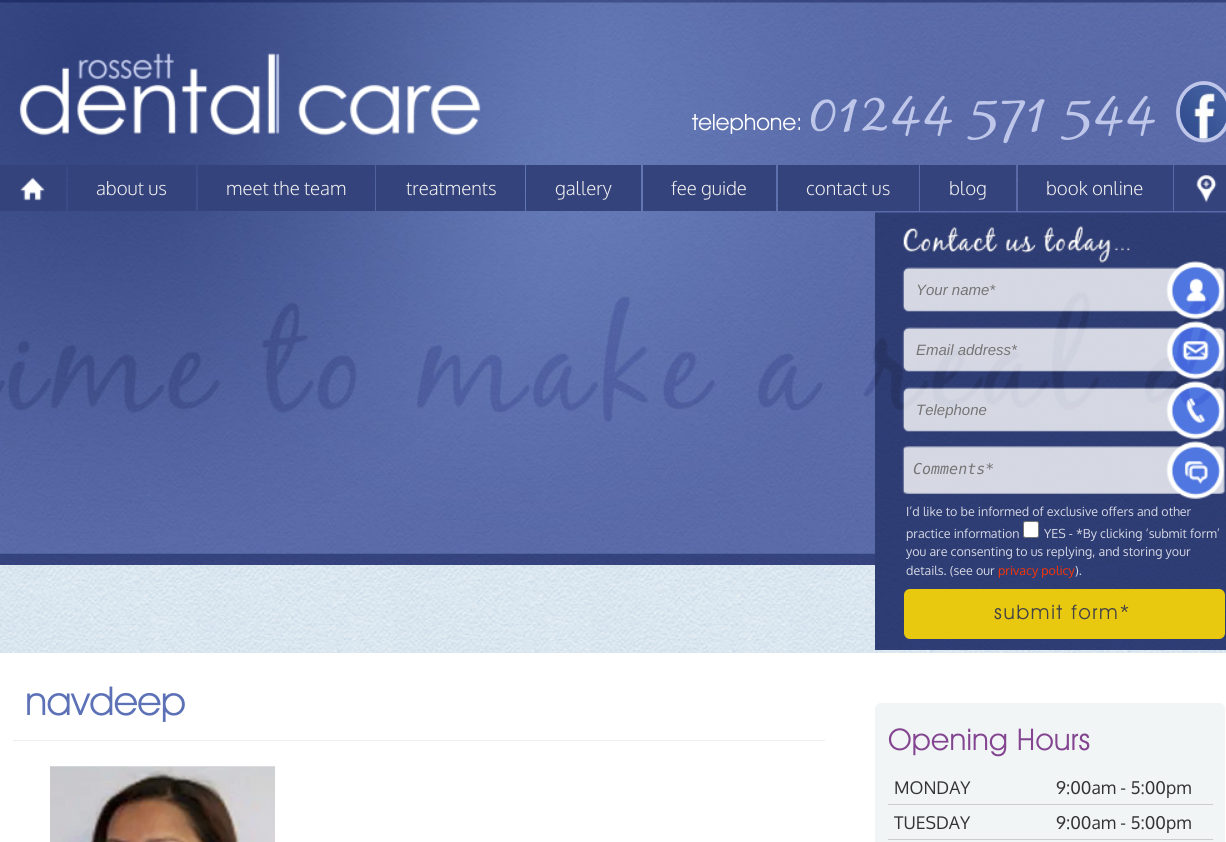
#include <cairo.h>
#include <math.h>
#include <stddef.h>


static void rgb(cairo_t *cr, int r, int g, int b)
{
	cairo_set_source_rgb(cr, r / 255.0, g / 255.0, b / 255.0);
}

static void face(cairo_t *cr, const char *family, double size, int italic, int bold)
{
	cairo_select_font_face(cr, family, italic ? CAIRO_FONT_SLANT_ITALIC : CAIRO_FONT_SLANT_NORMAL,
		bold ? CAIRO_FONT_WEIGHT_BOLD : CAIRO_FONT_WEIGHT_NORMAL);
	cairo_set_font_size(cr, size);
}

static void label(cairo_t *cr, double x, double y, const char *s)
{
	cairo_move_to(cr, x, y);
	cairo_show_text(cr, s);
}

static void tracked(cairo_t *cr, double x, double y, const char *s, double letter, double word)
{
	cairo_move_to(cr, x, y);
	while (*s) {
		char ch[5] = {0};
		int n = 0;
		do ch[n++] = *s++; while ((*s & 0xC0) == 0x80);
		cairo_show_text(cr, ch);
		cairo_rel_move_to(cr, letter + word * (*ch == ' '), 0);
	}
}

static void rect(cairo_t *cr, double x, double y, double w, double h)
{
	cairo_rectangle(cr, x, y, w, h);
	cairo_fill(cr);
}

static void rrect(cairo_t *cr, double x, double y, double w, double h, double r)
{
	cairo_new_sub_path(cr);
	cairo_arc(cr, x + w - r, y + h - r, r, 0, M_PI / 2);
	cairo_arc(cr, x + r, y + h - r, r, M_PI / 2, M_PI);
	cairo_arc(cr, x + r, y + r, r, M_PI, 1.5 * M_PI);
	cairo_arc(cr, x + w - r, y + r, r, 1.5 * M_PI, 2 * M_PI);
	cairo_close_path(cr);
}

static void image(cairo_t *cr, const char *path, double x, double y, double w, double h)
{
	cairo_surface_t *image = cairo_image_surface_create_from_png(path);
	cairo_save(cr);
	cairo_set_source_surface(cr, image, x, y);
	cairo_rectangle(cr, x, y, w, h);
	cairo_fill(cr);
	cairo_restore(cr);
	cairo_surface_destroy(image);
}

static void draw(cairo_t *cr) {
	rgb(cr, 255, 255, 255);
	cairo_paint(cr);
	image(cr, "image0.png", 0, 565, 1226, 88);
	image(cr, "image1.png", 0, 0, 1226, 565);
	image(cr, "image2.png", 19, 53, 462, 83);
	cairo_new_path(cr);
	cairo_move_to(cr, 1204, 83);
	cairo_curve_to(cr, 1218, 83, 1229.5, 96, 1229.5, 112);
	cairo_curve_to(cr, 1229.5, 128, 1218, 140.5, 1204, 140.5);
	cairo_curve_to(cr, 1189.5, 140.5, 1178, 128, 1178, 112);
	cairo_curve_to(cr, 1178, 96, 1189.5, 83, 1204, 83);
	cairo_close_path(cr);
	rgb(cr, 190, 198, 233);
	cairo_set_line_width(cr, 3.8);
	cairo_stroke(cr);
	face(cr, "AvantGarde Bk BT", 22.5, 0, 0);
	rgb(cr, 255, 255, 255);
	label(cr, 692, 130, "telephone:");
	face(cr, "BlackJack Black", 55, 0, 0);
	rgb(cr, 190, 198, 233);
	tracked(cr, 809, 130, "01244 571 544", 2.25, 0);
	image(cr, "image3.png", 1180, 85, 46, 54);
	rgb(cr, 53, 67, 125);
	rect(cr, 0, 165, 66, 46);
	image(cr, "image4.png", 20, 177, 25, 24);
	rect(cr, 68, 165, 128, 46);
	face(cr, "Oxygen Light", 18.75, 0, 0);
	rgb(cr, 238, 238, 238);
	label(cr, 96, 195, "about us");
	rgb(cr, 53, 67, 125);
	rect(cr, 198, 165, 177, 46);
	rgb(cr, 238, 238, 238);
	label(cr, 226, 195, "meet the team");
	rgb(cr, 53, 67, 125);
	rect(cr, 376, 165, 149, 46);
	rgb(cr, 238, 238, 238);
	label(cr, 406, 195, "treatments");
	rgb(cr, 53, 67, 125);
	rect(cr, 526, 165, 115, 46);
	rgb(cr, 238, 238, 238);
	label(cr, 555, 195, "gallery");
	rgb(cr, 53, 67, 125);
	rect(cr, 643, 165, 133, 46);
	rgb(cr, 238, 238, 238);
	label(cr, 671, 195, "fee guide");
	rgb(cr, 53, 67, 125);
	rect(cr, 778, 165, 141, 46);
	rgb(cr, 238, 238, 238);
	label(cr, 806, 195, "contact us");
	rgb(cr, 53, 67, 125);
	rect(cr, 920, 165, 96, 46);
	rgb(cr, 238, 238, 238);
	label(cr, 949, 195, "blog");
	rgb(cr, 53, 67, 125);
	rect(cr, 1018, 165, 155, 46);
	rgb(cr, 238, 238, 238);
	label(cr, 1046, 195, "book online");
	rgb(cr, 53, 67, 125);
	rect(cr, 1174, 165, 52, 46);
	image(cr, "image5.png", 1196, 175, 21, 28);
	image(cr, "image6.png", 875, 212, 351, 438);
	face(cr, "Liberation Sans", 15, 1, 0);
	rgb(cr, 117, 117, 117);
	label(cr, 916, 295, "Your name*");
	label(cr, 916, 355, "Email address*");
	label(cr, 916, 415, "Telephone");
	face(cr, "DejaVu Sans Mono", 15, 1, 0);
	label(cr, 913, 474, "Comments*");
	face(cr, "Oxygen", 12.5, 0, 0);
	rgb(cr, 214, 216, 228);
	label(cr, 906, 516, "I’d like to be informed of exclusive offers and other");
	label(cr, 906, 538, "practice information");
	rgb(cr, 255, 255, 255);
	rrect(cr, 1023.5, 521.5, 15, 16, 2);
	cairo_fill_preserve(cr);
	rgb(cr, 118, 118, 118);
	cairo_set_line_width(cr, 1);
	cairo_stroke(cr);
	rgb(cr, 214, 216, 228);
	label(cr, 1044, 538, "YES - *By clicking ‘submit form’");
	label(cr, 906, 556, "you are consenting to us replying, and storing your");
	label(cr, 906, 575, "details. (see our");
	rgb(cr, 249, 52, 5);
	label(cr, 998, 575, "privacy policy");
	rgb(cr, 214, 216, 228);
	label(cr, 1075, 575, ").");
	rgb(cr, 233, 200, 16);
	rrect(cr, 904, 589, 321, 50, 6);
	cairo_fill(cr);
	face(cr, "AvantGarde Bk BT", 20, 0, 0);
	rgb(cr, 67, 67, 70);
	tracked(cr, 994, 619, "submit form*", 1.75, 0);
	rgb(cr, 238, 238, 238);
	rect(cr, 13, 740, 812, 1);
	face(cr, "AvantGarde Bk BT", 40, 0, 0);
	rgb(cr, 92, 113, 182);
	tracked(cr, 25, 715, "navdeep", -0.75, 0);
	image(cr, "image7.png", 50, 766, 225, 76);
	rgb(cr, 241, 245, 246);
	rrect(cr, 875, 703, 350, 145, 6);
	cairo_fill(cr);
	face(cr, "AvantGarde Bk BT", 30, 0, 0);
	rgb(cr, 131, 68, 144);
	tracked(cr, 888, 750, "Opening Hours", 0.25, 0);
	rgb(cr, 204, 204, 204);
	rect(cr, 888, 804, 325, 1);
	face(cr, "Oxygen", 17.5, 0, 0);
	rgb(cr, 51, 51, 51);
	label(cr, 894, 794, "MONDAY");
	label(cr, 1056, 794, "9:00am - 5:00pm");
	rgb(cr, 204, 204, 204);
	rect(cr, 888, 839, 325, 1);
	rgb(cr, 51, 51, 51);
	label(cr, 894, 829, "TUESDAY");
	label(cr, 1056, 829, "9:00am - 5:00pm");
}

int main(void) {
	cairo_surface_t *surface = cairo_image_surface_create(CAIRO_FORMAT_RGB24, 1226, 842);
	cairo_t *cr = cairo_create(surface);
	cairo_font_options_t *options = cairo_font_options_create();
	cairo_font_options_set_hint_metrics(options, CAIRO_HINT_METRICS_OFF);
	cairo_font_options_set_hint_style(options, CAIRO_HINT_STYLE_NONE);
	cairo_set_font_options(cr, options);
	cairo_set_miter_limit(cr, 4);
	draw(cr);
	cairo_surface_write_to_png(surface, "render.png");
	cairo_font_options_destroy(options);
	cairo_destroy(cr);
	cairo_surface_destroy(surface);
	return 0;
}
